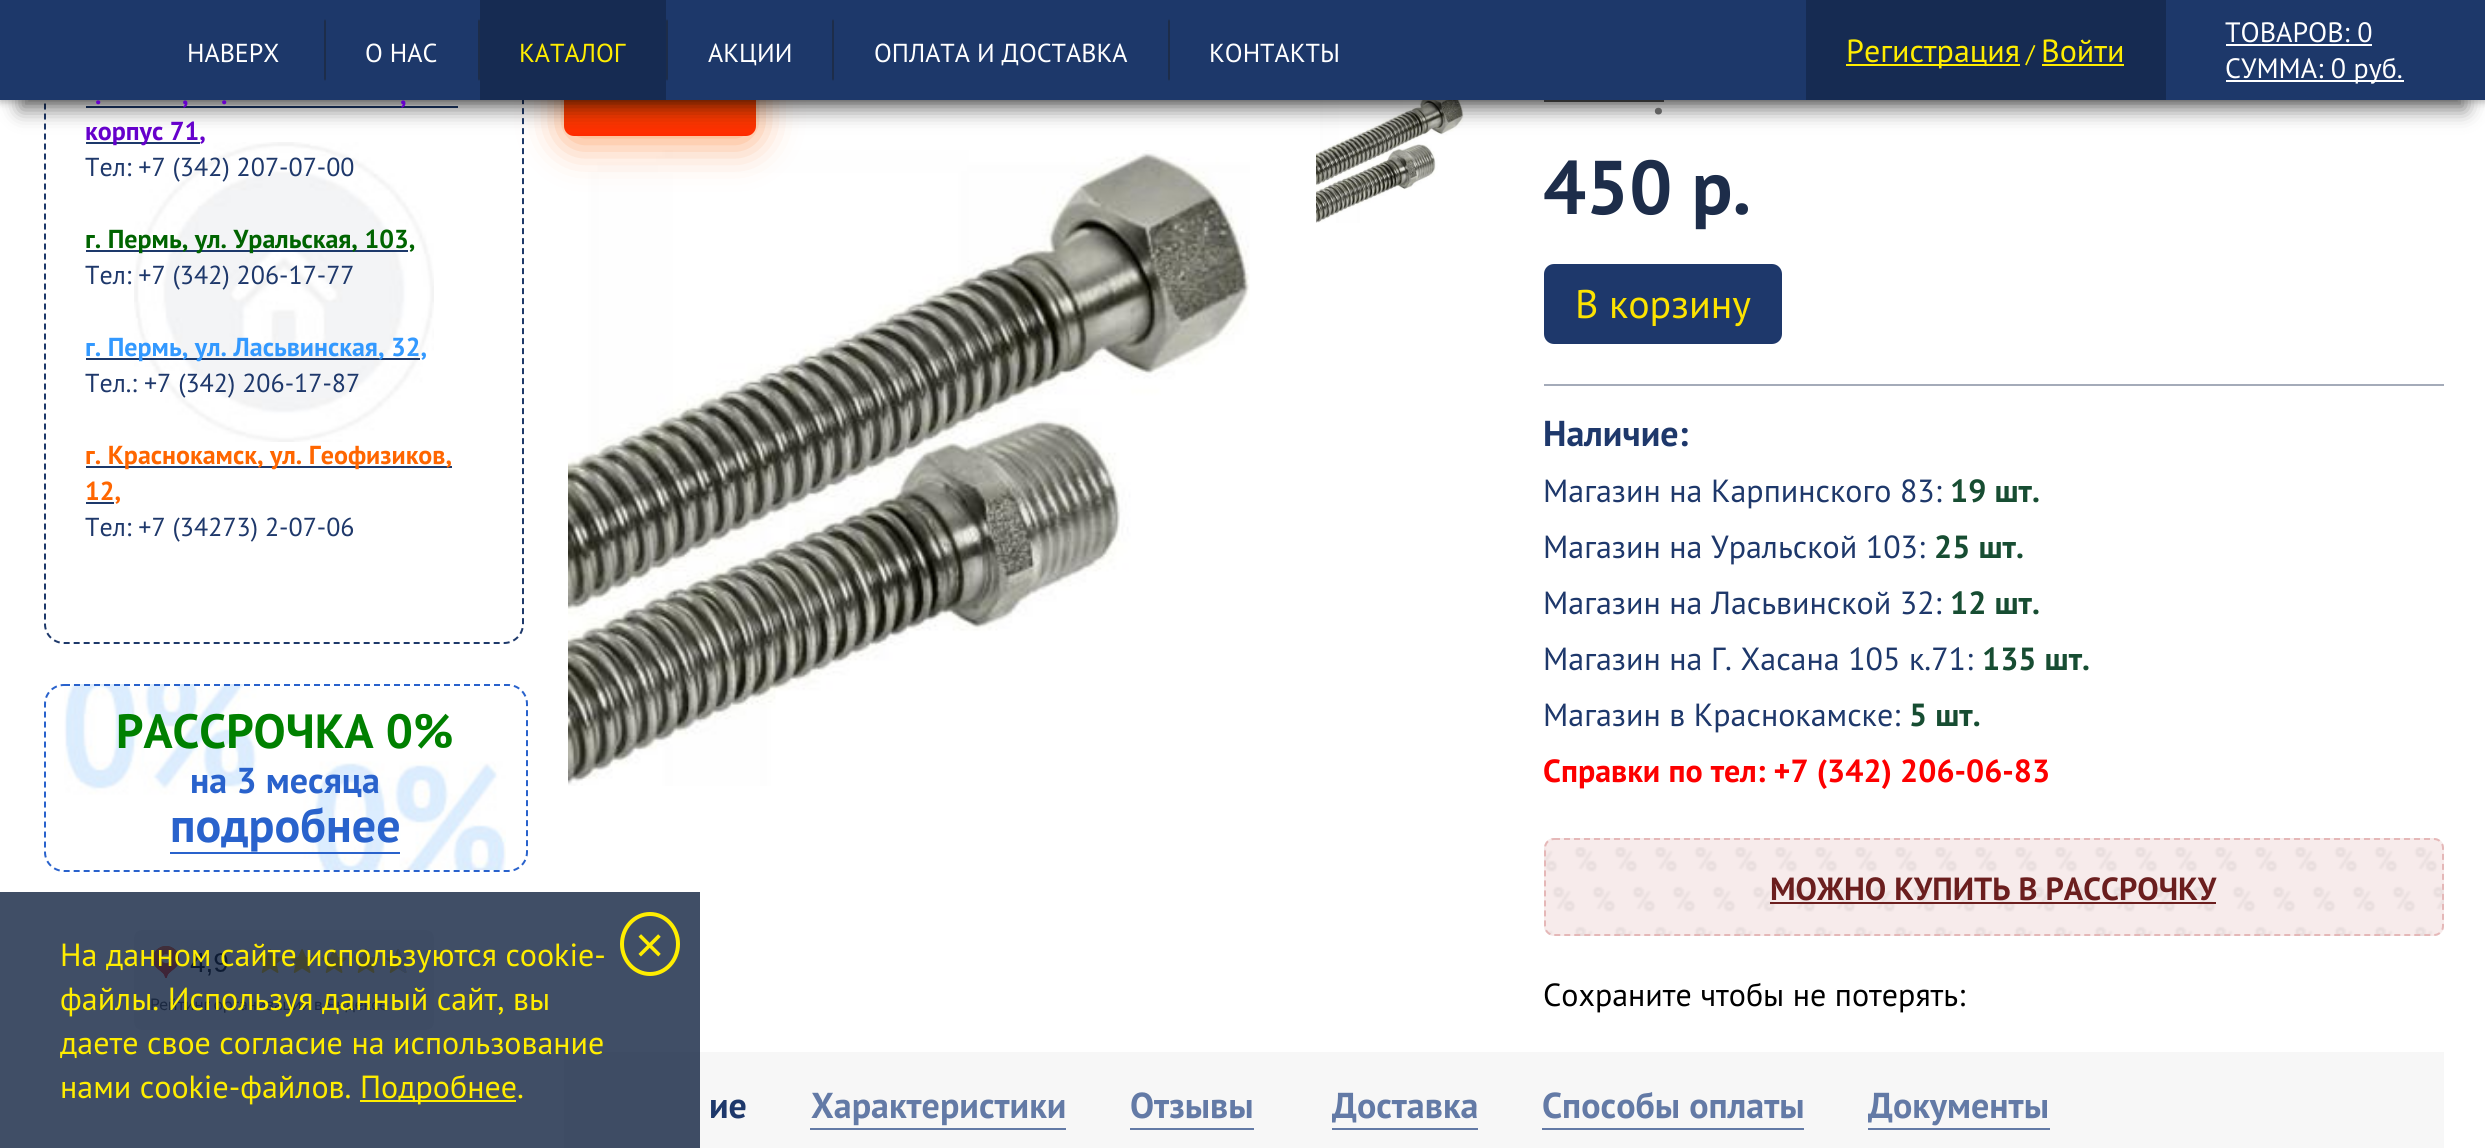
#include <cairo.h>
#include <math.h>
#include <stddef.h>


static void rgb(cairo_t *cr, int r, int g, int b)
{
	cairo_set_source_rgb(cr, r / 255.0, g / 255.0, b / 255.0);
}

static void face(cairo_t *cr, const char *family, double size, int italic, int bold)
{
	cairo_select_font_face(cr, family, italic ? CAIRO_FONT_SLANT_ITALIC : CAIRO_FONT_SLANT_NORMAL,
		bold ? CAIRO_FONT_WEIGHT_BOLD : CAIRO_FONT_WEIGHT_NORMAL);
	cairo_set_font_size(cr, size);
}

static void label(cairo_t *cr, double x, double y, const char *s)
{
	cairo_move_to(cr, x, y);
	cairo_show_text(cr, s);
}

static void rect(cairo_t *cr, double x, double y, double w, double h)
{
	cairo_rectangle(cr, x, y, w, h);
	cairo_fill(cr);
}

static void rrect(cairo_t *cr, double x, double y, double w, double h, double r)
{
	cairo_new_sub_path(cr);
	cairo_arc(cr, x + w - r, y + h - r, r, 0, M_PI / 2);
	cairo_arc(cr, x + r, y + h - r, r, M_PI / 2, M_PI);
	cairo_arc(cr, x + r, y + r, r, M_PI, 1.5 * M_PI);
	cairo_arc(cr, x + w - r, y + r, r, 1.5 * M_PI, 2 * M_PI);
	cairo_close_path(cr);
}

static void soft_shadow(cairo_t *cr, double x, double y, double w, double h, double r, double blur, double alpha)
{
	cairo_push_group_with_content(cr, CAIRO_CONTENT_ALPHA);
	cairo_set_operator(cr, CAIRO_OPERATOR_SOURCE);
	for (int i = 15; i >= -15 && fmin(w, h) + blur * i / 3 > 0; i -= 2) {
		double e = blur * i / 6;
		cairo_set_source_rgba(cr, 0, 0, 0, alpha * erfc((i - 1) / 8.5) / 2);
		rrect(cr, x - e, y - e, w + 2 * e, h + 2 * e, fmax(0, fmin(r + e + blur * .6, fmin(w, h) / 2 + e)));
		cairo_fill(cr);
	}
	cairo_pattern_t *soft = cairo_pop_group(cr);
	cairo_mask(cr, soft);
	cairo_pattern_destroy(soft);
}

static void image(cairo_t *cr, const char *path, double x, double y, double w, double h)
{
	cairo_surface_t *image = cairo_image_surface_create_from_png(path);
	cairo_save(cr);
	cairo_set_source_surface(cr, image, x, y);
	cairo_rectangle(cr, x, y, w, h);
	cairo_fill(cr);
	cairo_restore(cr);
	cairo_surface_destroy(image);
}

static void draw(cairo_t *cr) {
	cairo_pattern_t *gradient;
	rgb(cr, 255, 255, 255);
	cairo_paint(cr);
	image(cr, "image1.png", 134, 142, 300, 300);
	image(cr, "image4.png", 568, 150, 682, 636);
	rgb(cr, 250, 96, 0);
	soft_shadow(cr, 564, 74, 192, 68, 10, 20, 0.6);
	cairo_new_path(cr);
	cairo_move_to(cr, 64, -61);
	cairo_line_to(cr, 504, -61);
	cairo_curve_to(cr, 514.5, -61, 523, -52.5, 523, -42);
	cairo_line_to(cr, 523, 624);
	cairo_curve_to(cr, 523, 634.5, 514.5, 643, 504, 643);
	cairo_line_to(cr, 64, 643);
	cairo_curve_to(cr, 53.5, 643, 45, 634.5, 45, 624);
	cairo_line_to(cr, 45, -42);
	cairo_curve_to(cr, 45, -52.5, 53.5, -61, 64, -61);
	cairo_close_path(cr);
	rgb(cr, 29, 56, 106);
	cairo_set_dash(cr, (double[]){6, 4}, 2, 0);
	cairo_stroke(cr);
	rgb(cr, 29, 57, 107);
	rect(cr, 86, 106, 372, 2);
	image(cr, "image5.png", 1316, 100, 148, 123);
	gradient = cairo_pattern_create_linear(660, 68, 660, 136);
	cairo_pattern_add_color_stop_rgba(gradient, 0, 0.98, 0.376, 0, 1);
	cairo_pattern_add_color_stop_rgba(gradient, 1, 1, 0.169, 0, 1);
	cairo_set_source(cr, gradient);
	cairo_pattern_destroy(gradient);
	rrect(cr, 564, 68, 192, 68, 10);
	cairo_fill(cr);
	rgb(cr, 97, 97, 97);
	rect(cr, 1544, 100, 120, 2);
	rgb(cr, 0, 0, 0);
	soft_shadow(cr, 0, 2, 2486, 100, 0, 4, 0.3);
	soft_shadow(cr, 20, 50, 2446, 60, 0, 10, 0.5);
	rgb(cr, 29, 56, 106);
	rect(cr, 0, 0, 2485, 100);
	face(cr, "PT Sans", 26, 0, 0);
	rgb(cr, 255, 255, 255);
	label(cr, 187, 62, "НАВЕРХ");
	image(cr, "image0.png", 324, 19, 2, 62);
	label(cr, 365, 62, "О НАС");
	image(cr, "image0.png", 478, 19, 2, 62);
	rgb(cr, 22, 43, 82);
	rect(cr, 480, 0, 186, 100);
	rgb(cr, 255, 237, 0);
	label(cr, 519, 62, "КАТАЛОГ");
	image(cr, "image0.png", 666, 19, 2, 62);
	rgb(cr, 255, 255, 255);
	label(cr, 708, 62, "АКЦИИ");
	image(cr, "image0.png", 832, 19, 2, 62);
	label(cr, 874, 62, "ОПЛАТА И ДОСТАВКА");
	image(cr, "image0.png", 1168, 19, 2, 62);
	label(cr, 1209, 62, "КОНТАКТЫ");
	rgb(cr, 22, 43, 82);
	rect(cr, 1806, 0, 360, 100);
	rgb(cr, 255, 237, 0);
	rect(cr, 1846, 64, 174, 2);
	face(cr, "PT Sans", 32, 0, 0);
	label(cr, 1846, 62, "Регистрация");
	face(cr, "PT Sans", 24, 0, 0);
	label(cr, 2026, 62, "/");
	face(cr, "PT Sans", 32, 0, 0);
	label(cr, 2041, 62, "Войти");
	rect(cr, 2042, 64, 82, 2);
	face(cr, "PT Sans", 28, 0, 0);
	rgb(cr, 255, 255, 255);
	label(cr, 2225, 42, "ТОВАРОВ: 0");
	rect(cr, 2226, 44, 146, 2);
	rect(cr, 2226, 80, 178, 2);
	label(cr, 2225, 78, "СУММА: 0 руб.");
	face(cr, "PT Sans", 26, 0, 1);
	rgb(cr, 102, 0, 204);
	label(cr, 95, 104, ".");
	label(cr, 182, 104, ",");
	label(cr, 221, 104, ".");
	label(cr, 400, 104, ",");
	rgb(cr, 29, 57, 107);
	rect(cr, 86, 142, 114, 2);
	rgb(cr, 102, 0, 204);
	label(cr, 85, 140, "корпус 71,");
	face(cr, "PT Sans", 26, 0, 0);
	rgb(cr, 30, 56, 107);
	label(cr, 85, 176, "Тел: +7 (342) 207-07-00");
	rgb(cr, 29, 57, 107);
	rect(cr, 86, 250, 322, 2);
	face(cr, "PT Sans", 26, 0, 1);
	rgb(cr, 0, 100, 0);
	label(cr, 85, 248, "г. Пермь, ул. Уральская, 103,");
	face(cr, "PT Sans", 26, 0, 0);
	rgb(cr, 30, 56, 107);
	label(cr, 85, 284, "Тел: +7 (342) 206-17-77");
	rgb(cr, 29, 57, 107);
	rect(cr, 86, 358, 334, 2);
	face(cr, "PT Sans", 26, 0, 1);
	rgb(cr, 51, 153, 255);
	label(cr, 85, 356, "г. Пермь, ул. Ласьвинская, 32,");
	face(cr, "PT Sans", 26, 0, 0);
	rgb(cr, 30, 56, 107);
	label(cr, 85, 392, "Тел.: +7 (342) 206-17-87");
	rgb(cr, 29, 57, 107);
	rect(cr, 86, 466, 366, 2);
	face(cr, "PT Sans", 26, 0, 1);
	rgb(cr, 255, 102, 0);
	label(cr, 85, 464, "г. Краснокамск, ул. Геофизиков,");
	rgb(cr, 29, 57, 107);
	rect(cr, 86, 502, 28, 2);
	rgb(cr, 255, 102, 0);
	label(cr, 85, 500, "12,");
	face(cr, "PT Sans", 26, 0, 0);
	rgb(cr, 30, 56, 107);
	label(cr, 85, 536, "Тел: +7 (34273) 2-07-06");
	image(cr, "image2.png", 64, 684, 442, 186);
	cairo_new_path(cr);
	cairo_move_to(cr, 64, 685);
	cairo_line_to(cr, 508, 685);
	cairo_curve_to(cr, 518.5, 685, 527, 693.5, 527, 704);
	cairo_line_to(cr, 527, 852);
	cairo_curve_to(cr, 527, 862.5, 518.5, 871, 508, 871);
	cairo_line_to(cr, 64, 871);
	cairo_curve_to(cr, 53.5, 871, 45, 862.5, 45, 852);
	cairo_line_to(cr, 45, 704);
	cairo_curve_to(cr, 45, 693.5, 53.5, 685, 64, 685);
	cairo_close_path(cr);
	rgb(cr, 41, 98, 204);
	cairo_stroke(cr);
	face(cr, "PT Sans", 48, 0, 1);
	rgb(cr, 0, 128, 0);
	label(cr, 116, 748, "РАССРОЧКА 0%");
	face(cr, "PT Sans", 36, 0, 1);
	rgb(cr, 41, 98, 204);
	label(cr, 190, 793, "на 3 месяца");
	face(cr, "PT Sans", 48, 0, 1);
	label(cr, 170, 842, "подробнее");
	rect(cr, 170, 852, 230, 2);
	image(cr, "image3.png", 134, 930, 300, 100);
	rgb(cr, 164, 171, 185);
	rect(cr, 1544, 384, 900, 2);
	face(cr, "PT Sans", 44, 0, 1);
	rgb(cr, 97, 97, 97);
	label(cr, 1653, 114, ".");
	face(cr, "PT Sans", 76, 0, 1);
	rgb(cr, 29, 45, 74);
	label(cr, 1543, 214, "450 р.");
	rgb(cr, 30, 56, 107);
	rrect(cr, 1544, 264, 238, 80, 10);
	cairo_fill(cr);
	face(cr, "PT Sans", 40, 0, 0);
	rgb(cr, 253, 227, 0);
	label(cr, 1575, 318, "В корзину");
	face(cr, "PT Sans", 36, 0, 1);
	rgb(cr, 30, 56, 107);
	label(cr, 1543, 446, "Наличие:");
	face(cr, "PT Sans", 32, 0, 0);
	label(cr, 1543, 502, "Магазин на Карпинского 83:");
	face(cr, "PT Sans", 32, 0, 1);
	rgb(cr, 23, 77, 50);
	label(cr, 1950, 502, "19 шт.");
	face(cr, "PT Sans", 32, 0, 0);
	rgb(cr, 30, 56, 107);
	label(cr, 1543, 558, "Магазин на Уральской 103:");
	face(cr, "PT Sans", 32, 0, 1);
	rgb(cr, 23, 77, 50);
	label(cr, 1934, 558, "25 шт.");
	face(cr, "PT Sans", 32, 0, 0);
	rgb(cr, 30, 56, 107);
	label(cr, 1543, 614, "Магазин на Ласьвинской 32:");
	face(cr, "PT Sans", 32, 0, 1);
	rgb(cr, 23, 77, 50);
	label(cr, 1950, 614, "12 шт.");
	face(cr, "PT Sans", 32, 0, 0);
	rgb(cr, 30, 56, 107);
	label(cr, 1543, 670, "Магазин на Г. Хасана 105 к.71:");
	face(cr, "PT Sans", 32, 0, 1);
	rgb(cr, 23, 77, 50);
	label(cr, 1982, 670, "135 шт.");
	face(cr, "PT Sans", 32, 0, 0);
	rgb(cr, 30, 56, 107);
	label(cr, 1543, 726, "Магазин в Краснокамске:");
	face(cr, "PT Sans", 32, 0, 1);
	rgb(cr, 23, 77, 50);
	label(cr, 1909, 726, "5 шт.");
	rgb(cr, 253, 0, 0);
	label(cr, 1543, 782, "Справки по тел: +7 (342) 206-06-83");
	rgb(cr, 247, 235, 235);
	rrect(cr, 1544, 838, 900, 98, 10);
	cairo_fill(cr);
	image(cr, "image6.png", 1544, 847, 900, 89);
	cairo_new_path(cr);
	cairo_move_to(cr, 1554, 839);
	cairo_line_to(cr, 2434, 839);
	cairo_curve_to(cr, 2439, 839, 2443, 843, 2443, 848);
	cairo_line_to(cr, 2443, 926);
	cairo_curve_to(cr, 2443, 931, 2439, 935, 2434, 935);
	cairo_line_to(cr, 1554, 935);
	cairo_curve_to(cr, 1549, 935, 1545, 931, 1545, 926);
	cairo_line_to(cr, 1545, 848);
	cairo_curve_to(cr, 1545, 843, 1549, 839, 1554, 839);
	cairo_close_path(cr);
	rgb(cr, 229, 184, 184);
	cairo_stroke(cr);
	rgb(cr, 107, 30, 30);
	label(cr, 1770, 900, "МОЖНО КУПИТЬ В РАССРОЧКУ");
	rect(cr, 1770, 902, 446, 2);
	face(cr, "PT Sans", 32, 0, 0);
	rgb(cr, 0, 0, 0);
	label(cr, 1543, 1006, "Сохраните чтобы не потерять:");
	rgb(cr, 247, 247, 247);
	rect(cr, 564, 1052, 1880, 96);
	face(cr, "PT Sans", 36, 0, 1);
	rgb(cr, 30, 56, 107);
	label(cr, 709, 1118, "ие");
	rgb(cr, 99, 122, 166);
	label(cr, 811, 1118, "Характеристики");
	rect(cr, 810, 1128, 256, 2);
	label(cr, 1130, 1118, "Отзывы");
	rect(cr, 1130, 1128, 124, 2);
	label(cr, 1332, 1118, "Доставка");
	rect(cr, 1332, 1128, 146, 2);
	label(cr, 1542, 1118, "Способы оплаты");
	rect(cr, 1542, 1128, 262, 2);
	label(cr, 1868, 1118, "Документы");
	rect(cr, 1868, 1128, 182, 2);
	cairo_set_source_rgba(cr, 0.067, 0.133, 0.251, 0.8);
	rect(cr, 0, 892, 700, 256);
	face(cr, "PT Sans", 32, 0, 0);
	rgb(cr, 255, 237, 0);
	label(cr, 60, 966, "На данном сайте используются cookie-");
	cairo_new_path(cr);
	cairo_move_to(cr, 650, 914);
	cairo_curve_to(cr, 665.5, 914, 678, 927.5, 678, 944);
	cairo_curve_to(cr, 678, 960.5, 665.5, 974, 650, 974);
	cairo_curve_to(cr, 634.5, 974, 622, 960.5, 622, 944);
	cairo_curve_to(cr, 622, 927.5, 634.5, 914, 650, 914);
	cairo_close_path(cr);
	cairo_set_line_width(cr, 4);
	cairo_set_dash(cr, NULL, 0, 0);
	cairo_stroke(cr);
	face(cr, "Liberation Sans", 50, 0, 0);
	label(cr, 635, 962, "×");
	face(cr, "PT Sans", 32, 0, 0);
	label(cr, 60, 1010, "файлы. Используя данный сайт, вы");
	label(cr, 60, 1054, "даете свое согласие на использование");
	label(cr, 60, 1098, "нами cookie-файлов.");
	rect(cr, 360, 1100, 156, 2);
	label(cr, 360, 1098, "Подробнее.");
}

int main(void) {
	cairo_surface_t *surface = cairo_image_surface_create(CAIRO_FORMAT_RGB24, 2485, 1148);
	cairo_t *cr = cairo_create(surface);
	cairo_font_options_t *options = cairo_font_options_create();
	cairo_font_options_set_hint_metrics(options, CAIRO_HINT_METRICS_OFF);
	cairo_font_options_set_hint_style(options, CAIRO_HINT_STYLE_NONE);
	cairo_set_font_options(cr, options);
	cairo_set_miter_limit(cr, 4);
	draw(cr);
	cairo_surface_write_to_png(surface, "render.png");
	cairo_font_options_destroy(options);
	cairo_destroy(cr);
	cairo_surface_destroy(surface);
	return 0;
}
